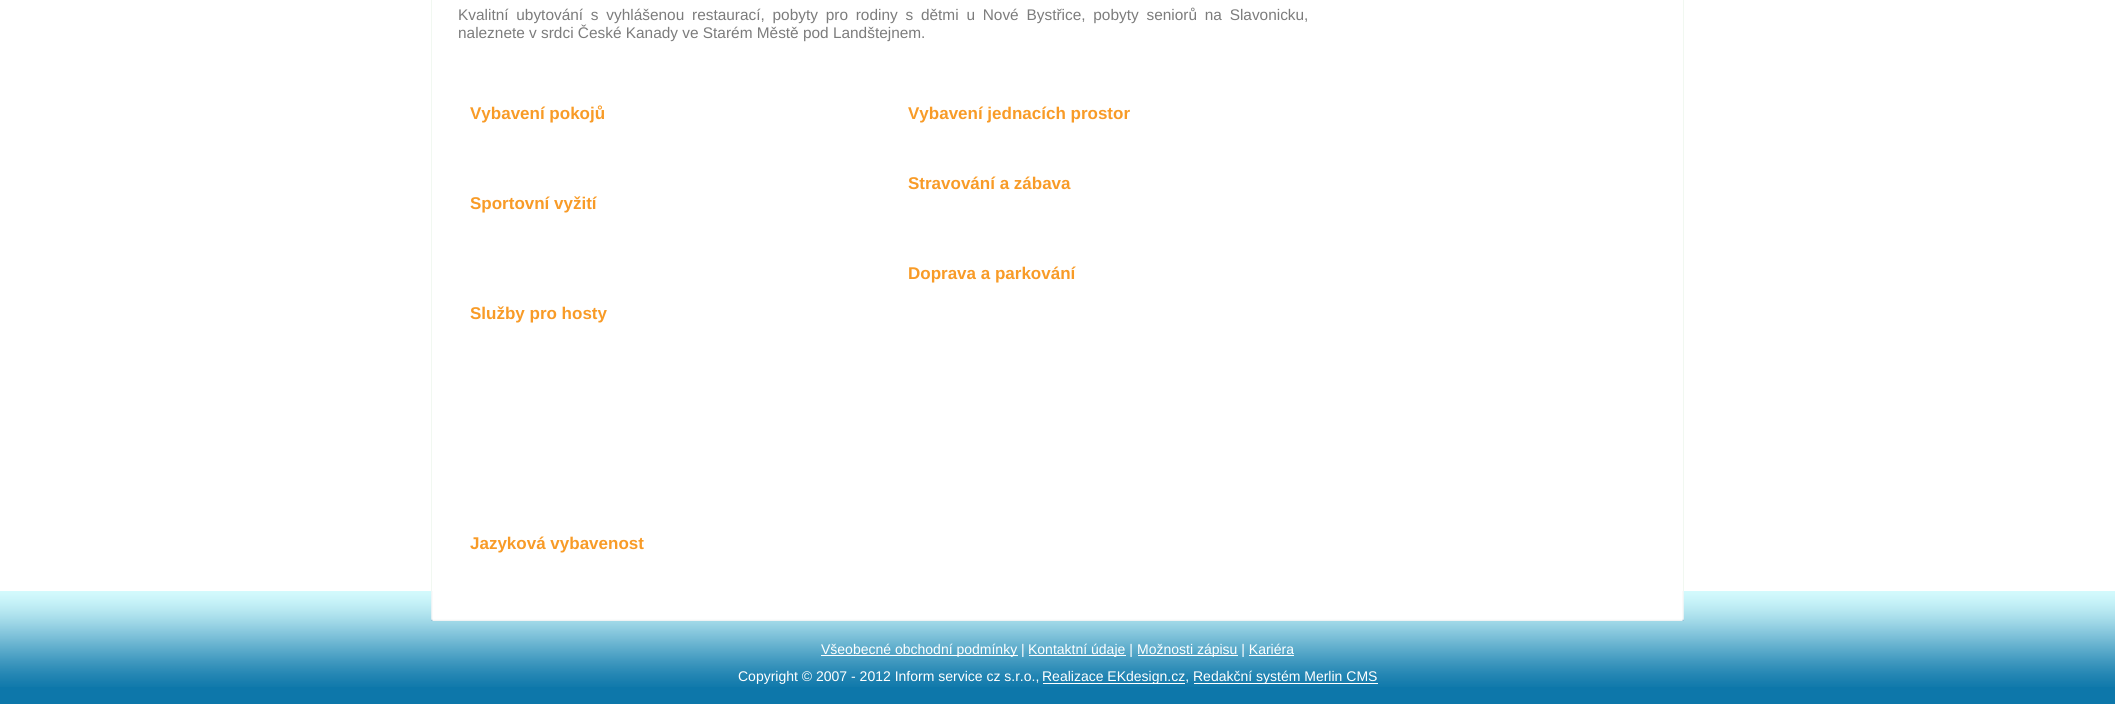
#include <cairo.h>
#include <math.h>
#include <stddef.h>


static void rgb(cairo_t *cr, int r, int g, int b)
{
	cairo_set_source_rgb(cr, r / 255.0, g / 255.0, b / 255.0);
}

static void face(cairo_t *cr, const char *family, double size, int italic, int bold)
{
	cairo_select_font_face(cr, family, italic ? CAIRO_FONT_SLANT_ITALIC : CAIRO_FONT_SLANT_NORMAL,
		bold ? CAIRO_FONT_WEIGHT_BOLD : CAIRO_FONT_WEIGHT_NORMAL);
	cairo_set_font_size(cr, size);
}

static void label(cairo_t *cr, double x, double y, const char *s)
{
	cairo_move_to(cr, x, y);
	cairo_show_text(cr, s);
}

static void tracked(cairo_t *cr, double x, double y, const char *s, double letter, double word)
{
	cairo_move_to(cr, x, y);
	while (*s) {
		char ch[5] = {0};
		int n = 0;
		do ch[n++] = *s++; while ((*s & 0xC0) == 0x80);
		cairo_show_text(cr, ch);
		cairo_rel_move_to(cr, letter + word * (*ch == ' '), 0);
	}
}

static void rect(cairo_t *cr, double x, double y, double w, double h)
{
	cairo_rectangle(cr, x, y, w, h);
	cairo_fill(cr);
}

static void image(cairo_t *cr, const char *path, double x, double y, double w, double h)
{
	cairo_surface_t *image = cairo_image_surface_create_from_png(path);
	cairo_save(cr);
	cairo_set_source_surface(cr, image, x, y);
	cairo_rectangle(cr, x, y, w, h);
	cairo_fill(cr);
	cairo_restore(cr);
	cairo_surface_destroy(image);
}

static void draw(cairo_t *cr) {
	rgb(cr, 255, 255, 255);
	cairo_paint(cr);
	rgb(cr, 241, 248, 241);
	rect(cr, 1683, 0, 1, 591);
	rect(cr, 431, 0, 1, 591);
	face(cr, "Liberation Sans", 15.4, 0, 0);
	rgb(cr, 124, 124, 124);
	tracked(cr, 458, 20, "Kvalitní ubytování s vyhlášenou restaurací, pobyty pro rodiny s dětmi u Nové Bystřice, pobyty seniorů na Slavonicku,", 0, 3.5);
	label(cr, 458, 38, "naleznete v srdci České Kanady ve Starém Městě pod Landštejnem.");
	face(cr, "Liberation Sans", 17, 0, 1);
	rgb(cr, 248, 155, 39);
	label(cr, 470, 119, "Vybavení pokojů");
	label(cr, 470, 209, "Sportovní vyžití");
	label(cr, 470, 319, "Služby pro hosty");
	label(cr, 908, 119, "Vybavení jednacích prostor");
	label(cr, 908, 189, "Stravování a zábava");
	label(cr, 908, 279, "Doprava a parkování");
	label(cr, 470, 549, "Jazyková vybavenost");
	rgb(cr, 13, 119, 170);
	rect(cr, 0, 687, 2115, 17);
	image(cr, "image0.png", 0, 591, 2115, 96);
	image(cr, "image1.png", 431, 591, 1253, 30);
	rgb(cr, 255, 255, 255);
	rect(cr, 821, 655, 197, 1);
	face(cr, "Liberation Sans", 14, 0, 0);
	label(cr, 821, 654, "Všeobecné obchodní podmínky |");
	rect(cr, 1029, 655, 97, 1);
	label(cr, 1028, 654, "Kontaktní údaje |");
	rect(cr, 1138, 655, 100, 1);
	label(cr, 1137, 654, "Možnosti zápisu | Kariéra");
	rect(cr, 1249, 655, 45, 1);
	label(cr, 738, 681, "Copyright © 2007 - 2012 Inform service cz s.r.o.,");
	rect(cr, 1043, 683, 142, 1);
	label(cr, 1042, 681, "Realizace EKdesign.cz,");
	rect(cr, 1194, 683, 184, 1);
	label(cr, 1193, 681, "Redakční systém Merlin CMS");
}

int main(void) {
	cairo_surface_t *surface = cairo_image_surface_create(CAIRO_FORMAT_RGB24, 2115, 704);
	cairo_t *cr = cairo_create(surface);
	cairo_font_options_t *options = cairo_font_options_create();
	cairo_font_options_set_hint_metrics(options, CAIRO_HINT_METRICS_OFF);
	cairo_font_options_set_hint_style(options, CAIRO_HINT_STYLE_NONE);
	cairo_set_font_options(cr, options);
	cairo_set_miter_limit(cr, 4);
	draw(cr);
	cairo_surface_write_to_png(surface, "render.png");
	cairo_font_options_destroy(options);
	cairo_destroy(cr);
	cairo_surface_destroy(surface);
	return 0;
}
